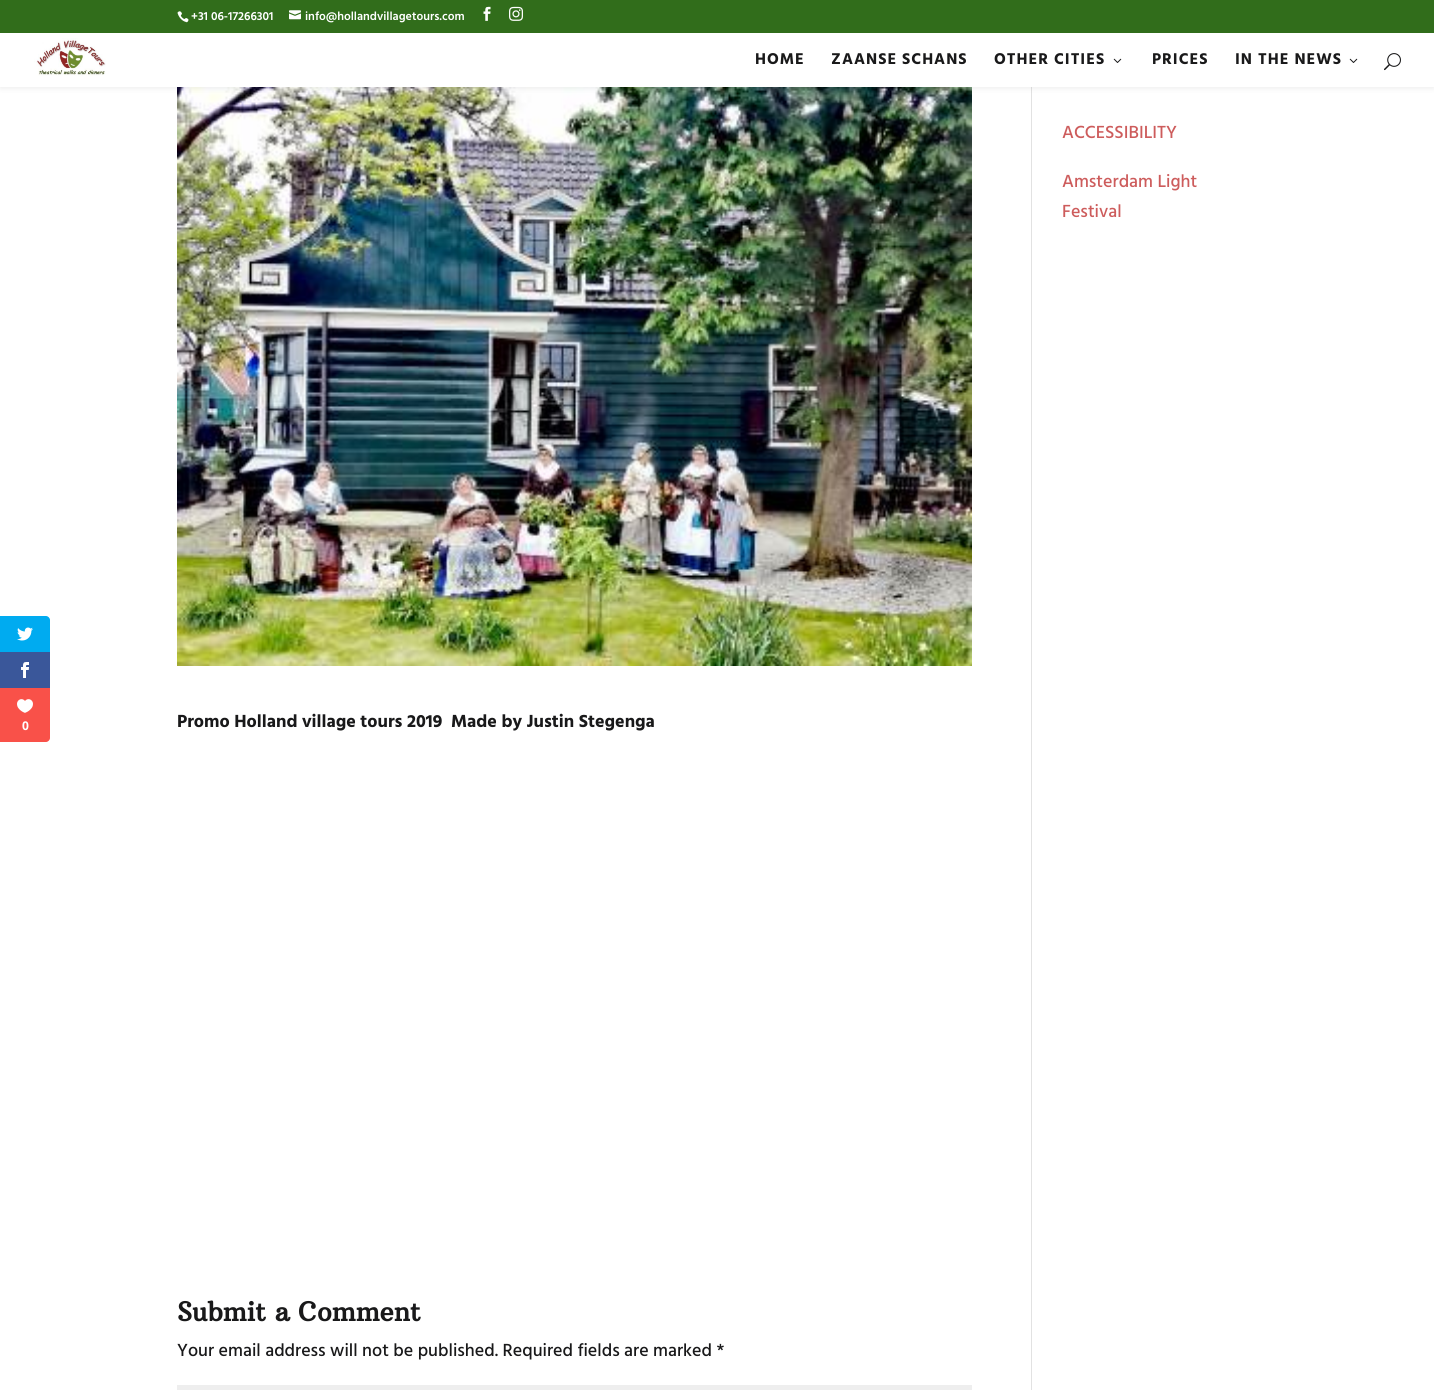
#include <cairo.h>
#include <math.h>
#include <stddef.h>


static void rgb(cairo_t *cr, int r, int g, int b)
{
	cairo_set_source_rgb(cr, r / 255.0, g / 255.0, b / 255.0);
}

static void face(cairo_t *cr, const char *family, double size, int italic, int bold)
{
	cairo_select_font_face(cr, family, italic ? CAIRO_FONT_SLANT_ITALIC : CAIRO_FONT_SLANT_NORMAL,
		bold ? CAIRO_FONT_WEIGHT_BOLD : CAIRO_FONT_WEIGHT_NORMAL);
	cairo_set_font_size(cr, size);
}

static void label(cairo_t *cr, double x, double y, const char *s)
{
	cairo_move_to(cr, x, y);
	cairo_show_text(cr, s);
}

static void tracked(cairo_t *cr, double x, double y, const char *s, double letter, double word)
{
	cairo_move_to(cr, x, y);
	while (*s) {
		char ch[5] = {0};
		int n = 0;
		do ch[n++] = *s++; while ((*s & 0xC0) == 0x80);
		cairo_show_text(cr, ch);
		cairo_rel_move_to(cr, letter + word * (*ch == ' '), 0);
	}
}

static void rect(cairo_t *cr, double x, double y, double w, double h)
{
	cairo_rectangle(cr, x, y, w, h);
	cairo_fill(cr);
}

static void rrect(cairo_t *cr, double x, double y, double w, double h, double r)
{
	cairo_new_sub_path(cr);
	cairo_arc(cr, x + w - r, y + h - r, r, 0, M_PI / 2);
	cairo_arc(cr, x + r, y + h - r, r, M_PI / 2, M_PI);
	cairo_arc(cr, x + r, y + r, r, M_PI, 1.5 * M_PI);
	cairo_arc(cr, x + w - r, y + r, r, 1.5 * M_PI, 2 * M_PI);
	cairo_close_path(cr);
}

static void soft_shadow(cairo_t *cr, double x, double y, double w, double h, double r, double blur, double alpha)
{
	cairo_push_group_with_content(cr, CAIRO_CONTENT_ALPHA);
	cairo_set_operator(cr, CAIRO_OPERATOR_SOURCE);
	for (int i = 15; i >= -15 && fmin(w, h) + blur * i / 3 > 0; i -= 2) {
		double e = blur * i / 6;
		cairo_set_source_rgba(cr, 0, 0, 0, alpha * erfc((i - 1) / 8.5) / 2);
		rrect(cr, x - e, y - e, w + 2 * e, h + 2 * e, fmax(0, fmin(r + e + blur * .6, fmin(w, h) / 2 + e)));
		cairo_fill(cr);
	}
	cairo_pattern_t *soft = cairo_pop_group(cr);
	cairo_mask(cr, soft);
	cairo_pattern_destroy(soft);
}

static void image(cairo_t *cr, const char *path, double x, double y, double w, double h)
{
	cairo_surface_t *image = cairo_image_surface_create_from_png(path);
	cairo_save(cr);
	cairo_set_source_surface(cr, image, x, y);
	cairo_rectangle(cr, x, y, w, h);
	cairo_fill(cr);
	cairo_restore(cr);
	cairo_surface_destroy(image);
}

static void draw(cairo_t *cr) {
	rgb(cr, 255, 255, 255);
	cairo_paint(cr);
	rgb(cr, 0, 171, 240);
	cairo_new_path(cr);
	cairo_move_to(cr, 0, 616);
	cairo_line_to(cr, 46, 616);
	cairo_curve_to(cr, 48, 616, 50, 618, 50, 620);
	cairo_line_to(cr, 50, 652);
	cairo_line_to(cr, 0, 652);
	cairo_close_path(cr);
	cairo_fill(cr);
	image(cr, "image0.png", 17, 627, 16, 14);
	rgb(cr, 58, 87, 154);
	rect(cr, 0, 652, 50, 36);
	image(cr, "image1.png", 21, 662, 8, 16);
	rgb(cr, 249, 81, 73);
	cairo_new_path(cr);
	cairo_move_to(cr, 0, 688);
	cairo_line_to(cr, 50, 688);
	cairo_line_to(cr, 50, 738);
	cairo_curve_to(cr, 50, 740, 48, 742, 46, 742);
	cairo_line_to(cr, 0, 742);
	cairo_close_path(cr);
	cairo_fill(cr);
	image(cr, "image2.png", 17, 699, 16, 14);
	face(cr, "Open Sans", 12, 0, 1);
	rgb(cr, 255, 255, 255);
	label(cr, 22, 730, "0");
	rgb(cr, 226, 226, 226);
	rect(cr, 1031, 87, 1, 1303);
	image(cr, "image10.png", 177, 87, 795, 579);
	rgb(cr, 0, 0, 0);
	soft_shadow(cr, 0, 33, 1434, 54, 0, 3.5, 0.1);
	rgb(cr, 49, 109, 27);
	rect(cr, 0, 0, 1434, 33);
	image(cr, "image3.png", 177, 11, 12, 12);
	face(cr, "Hind SemiBold", 12, 0, 0);
	rgb(cr, 255, 255, 255);
	label(cr, 191, 20, "+31 06-17266301");
	image(cr, "image4.png", 289, 10, 12, 10);
	label(cr, 305, 20, "info@hollandvillagetours.com");
	image(cr, "image5.png", 483, 6, 8, 15);
	image(cr, "image6.png", 509, 6, 14, 15);
	rect(cr, 0, 33, 1434, 54);
	image(cr, "image7.png", 34, 38, 72, 38);
	face(cr, "Hind", 16, 0, 1);
	rgb(cr, 25, 25, 26);
	tracked(cr, 755, 64, "HOME", 1, 0);
	tracked(cr, 831, 64, "ZAANSE SCHANS", 1, 0);
	tracked(cr, 994, 64, "OTHER CITIES", 1, 0);
	image(cr, "image8.png", 1113, 58, 9, 5);
	tracked(cr, 1152, 64, "PRICES", 1, 0);
	tracked(cr, 1235, 64, "IN THE NEWS", 1, 0);
	image(cr, "image8.png", 1349, 58, 9, 5);
	image(cr, "image9.png", 1384, 53, 17, 18);
	face(cr, "Hind Medium", 18, 0, 0);
	rgb(cr, 205, 92, 92);
	label(cr, 1062, 138, "ACCESSIBILITY");
	label(cr, 1062, 187, "Amsterdam Light");
	label(cr, 1062, 217, "Festival");
	face(cr, "Hind", 18, 0, 1);
	rgb(cr, 25, 25, 26);
	label(cr, 177, 727, "Promo Holland village tours 2019");
	label(cr, 451, 727, "Made by Justin Stegenga");
	face(cr, "Arbutus Slab", 26, 0, 1);
	label(cr, 177, 1321, "Submit a Comment");
	face(cr, "Hind Medium", 18, 0, 0);
	label(cr, 177, 1356, "Your email address will not be published. Required fields are marked *");
	rgb(cr, 238, 238, 238);
	rect(cr, 177, 1385, 795, 5);
}

int main(void) {
	cairo_surface_t *surface = cairo_image_surface_create(CAIRO_FORMAT_RGB24, 1434, 1390);
	cairo_t *cr = cairo_create(surface);
	cairo_font_options_t *options = cairo_font_options_create();
	cairo_font_options_set_hint_metrics(options, CAIRO_HINT_METRICS_OFF);
	cairo_font_options_set_hint_style(options, CAIRO_HINT_STYLE_NONE);
	cairo_set_font_options(cr, options);
	cairo_set_miter_limit(cr, 4);
	draw(cr);
	cairo_surface_write_to_png(surface, "render.png");
	cairo_font_options_destroy(options);
	cairo_destroy(cr);
	cairo_surface_destroy(surface);
	return 0;
}
